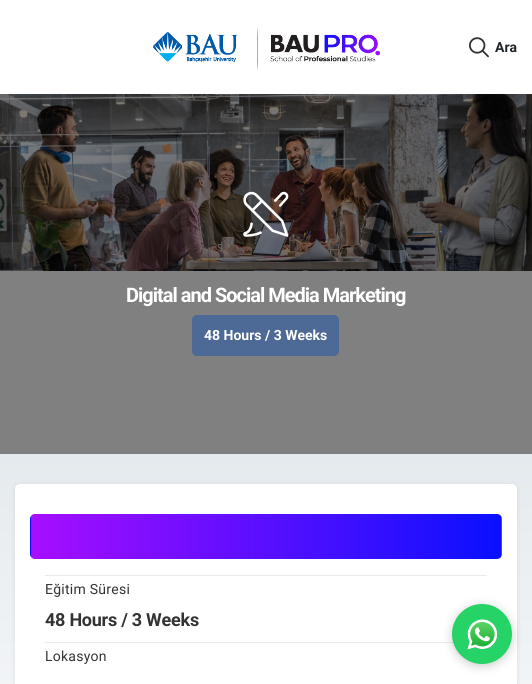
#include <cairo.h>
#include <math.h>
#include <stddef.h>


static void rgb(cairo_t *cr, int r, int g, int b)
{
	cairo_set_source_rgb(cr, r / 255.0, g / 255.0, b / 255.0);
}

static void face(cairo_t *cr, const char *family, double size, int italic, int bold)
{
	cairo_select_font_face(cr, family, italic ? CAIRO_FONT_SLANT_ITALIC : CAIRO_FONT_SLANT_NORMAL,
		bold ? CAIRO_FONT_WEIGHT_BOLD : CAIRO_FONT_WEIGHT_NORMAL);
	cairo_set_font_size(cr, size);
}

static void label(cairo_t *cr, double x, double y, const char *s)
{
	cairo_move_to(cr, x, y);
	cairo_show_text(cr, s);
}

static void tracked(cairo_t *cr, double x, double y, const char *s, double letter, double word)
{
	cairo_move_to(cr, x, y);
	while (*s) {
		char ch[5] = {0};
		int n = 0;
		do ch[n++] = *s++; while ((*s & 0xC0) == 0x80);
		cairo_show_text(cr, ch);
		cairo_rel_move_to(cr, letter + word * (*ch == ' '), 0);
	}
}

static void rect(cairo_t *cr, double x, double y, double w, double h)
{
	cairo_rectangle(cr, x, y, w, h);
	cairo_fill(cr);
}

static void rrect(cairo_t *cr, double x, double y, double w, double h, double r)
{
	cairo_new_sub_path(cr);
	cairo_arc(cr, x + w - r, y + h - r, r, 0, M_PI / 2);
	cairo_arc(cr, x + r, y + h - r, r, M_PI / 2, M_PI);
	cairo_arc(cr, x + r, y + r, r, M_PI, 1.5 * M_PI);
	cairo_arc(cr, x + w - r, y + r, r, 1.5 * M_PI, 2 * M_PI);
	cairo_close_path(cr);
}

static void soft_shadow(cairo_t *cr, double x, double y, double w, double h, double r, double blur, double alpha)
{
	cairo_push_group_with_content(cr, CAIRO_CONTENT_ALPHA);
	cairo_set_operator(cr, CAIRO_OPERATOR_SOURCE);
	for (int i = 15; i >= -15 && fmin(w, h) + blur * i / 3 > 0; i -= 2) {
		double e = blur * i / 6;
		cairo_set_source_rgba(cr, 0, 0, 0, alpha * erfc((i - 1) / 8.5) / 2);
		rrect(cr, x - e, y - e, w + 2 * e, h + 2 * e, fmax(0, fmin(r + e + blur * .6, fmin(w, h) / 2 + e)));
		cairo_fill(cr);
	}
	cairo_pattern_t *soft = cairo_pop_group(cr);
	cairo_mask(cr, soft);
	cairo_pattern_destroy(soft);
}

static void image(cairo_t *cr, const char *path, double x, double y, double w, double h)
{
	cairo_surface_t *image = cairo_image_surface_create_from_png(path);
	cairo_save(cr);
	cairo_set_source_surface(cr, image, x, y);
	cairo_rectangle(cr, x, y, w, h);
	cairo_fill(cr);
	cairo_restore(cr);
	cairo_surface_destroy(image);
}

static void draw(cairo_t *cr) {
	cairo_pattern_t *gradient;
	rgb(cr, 255, 255, 255);
	cairo_paint(cr);
	rgb(cr, 128, 128, 128);
	rect(cr, 0, 271, 532, 183);
	image(cr, "image0.png", 153, 27, 227, 44);
	image(cr, "image1.png", 469, 37, 20, 21);
	face(cr, "Roboto", 14, 0, 1);
	rgb(cr, 31, 36, 41);
	label(cr, 495, 52, "Ara");
	image(cr, "image2.png", 0, 94, 532, 177);
	image(cr, "image3.png", 243, 191, 46, 46);
	face(cr, "Roboto", 20, 0, 1);
	rgb(cr, 255, 255, 255);
	tracked(cr, 126, 302, "Digital and Social Media Marketing", -1, 0);
	rgb(cr, 77, 105, 149);
	rrect(cr, 192, 315, 147, 41, 5);
	cairo_fill(cr);
	face(cr, "Roboto", 14, 0, 1);
	rgb(cr, 255, 255, 255);
	label(cr, 204, 340, "48 Hours / 3 Weeks");
	gradient = cairo_pattern_create_linear(266, 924, 266, 454);
	cairo_pattern_add_color_stop_rgba(gradient, 0, 1, 1, 1, 1);
	cairo_pattern_add_color_stop_rgba(gradient, 1, 0.898, 0.918, 0.933, 1);
	cairo_set_source(cr, gradient);
	cairo_pattern_destroy(gradient);
	rect(cr, 0, 454, 532, 230);
	rgb(cr, 0, 0, 0);
	soft_shadow(cr, 15, 485, 502, 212, 5, 2.5, 0.1);
	rgb(cr, 255, 255, 255);
	rrect(cr, 15, 484, 502, 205, 5);
	cairo_fill(cr);
	cairo_save(cr);
	rrect(cr, 30, 514, 472, 45, 5);
	cairo_clip(cr);
	gradient = cairo_pattern_create_linear(-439, 537, 31, 537);
	cairo_pattern_add_color_stop_rgba(gradient, 0, 0.655, 0.055, 1, 1);
	cairo_pattern_add_color_stop_rgba(gradient, 1, 0.039, 0.059, 1, 1);
	cairo_set_source(cr, gradient);
	cairo_pattern_destroy(gradient);
	rect(cr, 30, 514, 1, 45);
	gradient = cairo_pattern_create_linear(31, 537, 501, 537);
	cairo_pattern_add_color_stop_rgba(gradient, 0, 0.655, 0.055, 1, 1);
	cairo_pattern_add_color_stop_rgba(gradient, 1, 0.039, 0.059, 1, 1);
	cairo_set_source(cr, gradient);
	cairo_pattern_destroy(gradient);
	rect(cr, 31, 514, 470, 45);
	gradient = cairo_pattern_create_linear(501, 537, 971, 537);
	cairo_pattern_add_color_stop_rgba(gradient, 0, 0.655, 0.055, 1, 1);
	cairo_pattern_add_color_stop_rgba(gradient, 1, 0.039, 0.059, 1, 1);
	cairo_set_source(cr, gradient);
	cairo_pattern_destroy(gradient);
	rect(cr, 501, 514, 1, 45);
	cairo_restore(cr);
	rgb(cr, 232, 233, 233);
	rect(cr, 45, 575, 442, 1);
	face(cr, "Roboto", 14, 0, 0);
	rgb(cr, 51, 51, 51);
	tracked(cr, 45, 594, "Eğitim Süresi", 0.25, 0);
	face(cr, "Roboto", 18, 0, 1);
	tracked(cr, 45, 626, "48 Hours / 3 Weeks", -0.25, 0);
	rgb(cr, 232, 233, 233);
	rect(cr, 45, 642, 409, 1);
	face(cr, "Roboto", 14, 0, 0);
	rgb(cr, 51, 51, 51);
	tracked(cr, 45, 661, "Lokasyon", 0.25, 0);
	rgb(cr, 0, 0, 0);
	soft_shadow(cr, 452, 606, 60, 60, 30, 5, 0.2);
	rgb(cr, 37, 211, 102);
	cairo_arc(cr, 482, 634, 30, 0, 2 * M_PI);
	cairo_fill(cr);
	image(cr, "image4.png", 467, 619, 31, 31);
}

int main(void) {
	cairo_surface_t *surface = cairo_image_surface_create(CAIRO_FORMAT_RGB24, 532, 684);
	cairo_t *cr = cairo_create(surface);
	cairo_font_options_t *options = cairo_font_options_create();
	cairo_font_options_set_hint_metrics(options, CAIRO_HINT_METRICS_OFF);
	cairo_font_options_set_hint_style(options, CAIRO_HINT_STYLE_NONE);
	cairo_set_font_options(cr, options);
	cairo_set_miter_limit(cr, 4);
	draw(cr);
	cairo_surface_write_to_png(surface, "render.png");
	cairo_font_options_destroy(options);
	cairo_destroy(cr);
	cairo_surface_destroy(surface);
	return 0;
}
